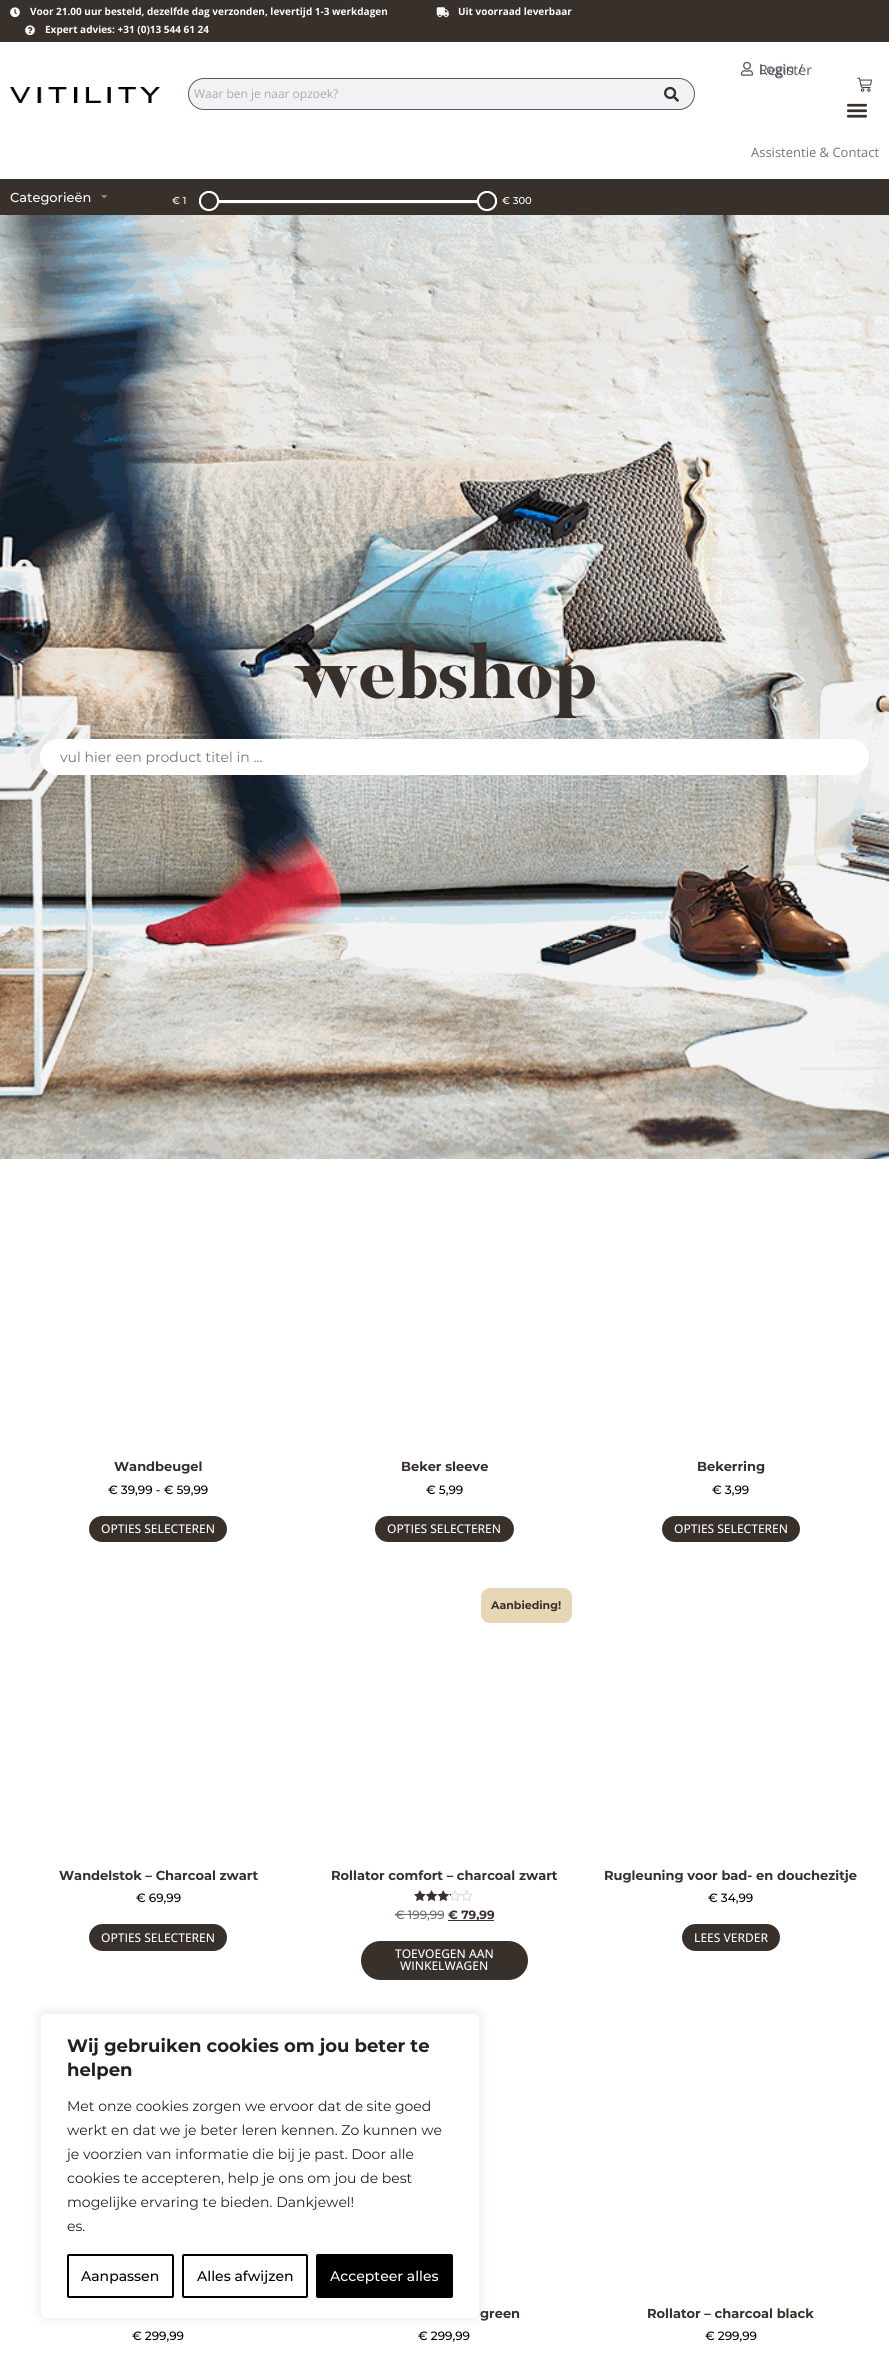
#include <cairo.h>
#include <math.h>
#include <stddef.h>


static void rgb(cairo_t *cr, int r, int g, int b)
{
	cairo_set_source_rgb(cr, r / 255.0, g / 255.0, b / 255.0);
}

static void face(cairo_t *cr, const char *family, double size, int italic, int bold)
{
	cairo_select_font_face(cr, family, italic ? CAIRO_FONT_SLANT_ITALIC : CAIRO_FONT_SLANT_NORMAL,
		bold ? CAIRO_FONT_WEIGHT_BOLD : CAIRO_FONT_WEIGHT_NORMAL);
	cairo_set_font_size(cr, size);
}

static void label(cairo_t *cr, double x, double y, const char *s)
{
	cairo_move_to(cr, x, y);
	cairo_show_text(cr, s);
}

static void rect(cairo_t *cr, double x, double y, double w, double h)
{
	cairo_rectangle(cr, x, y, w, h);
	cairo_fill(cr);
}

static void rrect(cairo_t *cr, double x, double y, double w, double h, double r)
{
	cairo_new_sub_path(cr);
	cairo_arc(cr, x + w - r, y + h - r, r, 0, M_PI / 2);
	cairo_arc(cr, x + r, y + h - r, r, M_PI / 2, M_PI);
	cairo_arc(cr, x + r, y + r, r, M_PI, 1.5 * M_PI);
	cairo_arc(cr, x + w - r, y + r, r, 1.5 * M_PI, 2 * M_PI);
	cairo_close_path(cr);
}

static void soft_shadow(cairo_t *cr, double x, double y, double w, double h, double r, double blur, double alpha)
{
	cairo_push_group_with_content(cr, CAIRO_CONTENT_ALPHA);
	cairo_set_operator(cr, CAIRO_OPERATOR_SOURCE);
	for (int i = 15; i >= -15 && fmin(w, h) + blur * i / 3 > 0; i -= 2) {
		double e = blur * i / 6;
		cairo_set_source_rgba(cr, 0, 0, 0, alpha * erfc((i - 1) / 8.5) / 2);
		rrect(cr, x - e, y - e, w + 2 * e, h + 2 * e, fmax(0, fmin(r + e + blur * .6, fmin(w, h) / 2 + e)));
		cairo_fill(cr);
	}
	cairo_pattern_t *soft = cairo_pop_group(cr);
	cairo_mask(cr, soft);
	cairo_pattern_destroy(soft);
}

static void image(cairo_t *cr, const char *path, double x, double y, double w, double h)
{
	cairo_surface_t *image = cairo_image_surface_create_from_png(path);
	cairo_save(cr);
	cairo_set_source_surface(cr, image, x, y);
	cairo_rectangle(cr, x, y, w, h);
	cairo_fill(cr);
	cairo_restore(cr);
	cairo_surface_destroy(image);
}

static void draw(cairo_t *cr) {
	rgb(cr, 255, 255, 255);
	cairo_paint(cr);
	rgb(cr, 56, 48, 43);
	rect(cr, 0, 0, 889, 42);
	image(cr, "image0.png", 10, 7, 10, 11);
	face(cr, "Open Sans", 10, 0, 1);
	rgb(cr, 255, 255, 255);
	label(cr, 30, 15, "Voor 21.00 uur besteld, dezelfde dag verzonden, levertijd 1-3 werkdagen");
	image(cr, "image1.png", 436, 7, 14, 11);
	label(cr, 458, 15, "Uit voorraad leverbaar");
	image(cr, "image2.png", 25, 25, 10, 11);
	label(cr, 45, 33, "Expert advies: +31 (0)13 544 61 24");
	image(cr, "image3.png", 740, 61, 14, 15);
	face(cr, "Open Sans", 14, 0, 0);
	rgb(cr, 84, 89, 95);
	label(cr, 759, 74, "Login /");
	label(cr, 759, 75, "Register");
	image(cr, "image4.png", 857, 77, 15, 15);
	image(cr, "image5.png", 846, 103, 22, 15);
	image(cr, "image6.png", 10, 87, 150, 16);
	rgb(cr, 241, 242, 243);
	rrect(cr, 188.5, 78.5, 506, 31, 15.5);
	cairo_fill_preserve(cr);
	rgb(cr, 84, 89, 95);
	cairo_set_line_width(cr, 1);
	cairo_stroke(cr);
	face(cr, "Open Sans", 12, 0, 0);
	rgb(cr, 170, 170, 170);
	label(cr, 194, 98, "Waar ben je naar opzoek?");
	image(cr, "image7.png", 664, 86, 15, 16);
	face(cr, "Open Sans", 13, 0, 0);
	rgb(cr, 117, 117, 117);
	label(cr, 751, 157, "Assistentie & Contact");
	rgb(cr, 56, 48, 43);
	rect(cr, 0, 179, 889, 36);
	face(cr, "Montserrat Medium", 13, 0, 0);
	rgb(cr, 255, 255, 255);
	label(cr, 10, 202, "Categorieën");
	image(cr, "image8.png", 101, 195, 6, 4);
	rgb(cr, 68, 68, 68);
	rect(cr, 198, 201, 33, 3);
	rect(cr, 471, 201, 27, 3);
	rgb(cr, 255, 255, 255);
	rect(cr, 218, 200, 260, 3);
	image(cr, "image9.png", 199, 191, 20, 20);
	image(cr, "image10.png", 477, 191, 20, 20);
	face(cr, "Montserrat Medium", 10, 0, 0);
	label(cr, 172, 204, "€ 1");
	rgb(cr, 68, 68, 68);
	rect(cr, 231, 203, 240, 1);
	rgb(cr, 255, 255, 255);
	label(cr, 502, 204, "€ 300");
	image(cr, "image11.png", 0, 215, 889, 944);
	face(cr, "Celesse", 80, 0, 0);
	rgb(cr, 56, 48, 43);
	label(cr, 293, 698, "webshop");
	rgb(cr, 255, 255, 255);
	rrect(cr, 40, 739, 829, 36, 18);
	cairo_fill(cr);
	face(cr, "Montserrat", 14, 0, 0);
	rgb(cr, 117, 117, 117);
	label(cr, 60, 762, "vul hier een product titel in ...");
	face(cr, "Montserrat", 13, 0, 1);
	rgb(cr, 56, 48, 43);
	label(cr, 114, 1471, "Wandbeugel");
	face(cr, "Montserrat Medium", 12, 0, 0);
	rgb(cr, 0, 0, 0);
	label(cr, 108, 1494, "€ 39,99 - € 59,99");
	rgb(cr, 56, 48, 43);
	rrect(cr, 89, 1516, 138, 26, 13);
	cairo_fill(cr);
	face(cr, "Open Sans Medium", 12, 0, 0);
	rgb(cr, 255, 255, 255);
	label(cr, 101, 1533, "OPTIES SELECTEREN");
	face(cr, "Montserrat", 13, 0, 1);
	rgb(cr, 56, 48, 43);
	label(cr, 401, 1471, "Beker sleeve");
	face(cr, "Montserrat Medium", 12, 0, 0);
	rgb(cr, 0, 0, 0);
	label(cr, 426, 1494, "€ 5,99");
	rgb(cr, 56, 48, 43);
	rrect(cr, 375, 1516, 139, 26, 13);
	cairo_fill(cr);
	face(cr, "Open Sans Medium", 12, 0, 0);
	rgb(cr, 255, 255, 255);
	label(cr, 387, 1533, "OPTIES SELECTEREN");
	face(cr, "Montserrat", 13, 0, 1);
	rgb(cr, 56, 48, 43);
	label(cr, 697, 1471, "Bekerring");
	face(cr, "Montserrat Medium", 12, 0, 0);
	rgb(cr, 0, 0, 0);
	label(cr, 712, 1494, "€ 3,99");
	rgb(cr, 56, 48, 43);
	rrect(cr, 662, 1516, 138, 26, 13);
	cairo_fill(cr);
	face(cr, "Open Sans Medium", 12, 0, 0);
	rgb(cr, 255, 255, 255);
	label(cr, 674, 1533, "OPTIES SELECTEREN");
	face(cr, "Montserrat", 13, 0, 1);
	rgb(cr, 56, 48, 43);
	label(cr, 59, 1880, "Wandelstok – Charcoal zwart");
	face(cr, "Montserrat Medium", 12, 0, 0);
	rgb(cr, 0, 0, 0);
	label(cr, 136, 1902, "€ 69,99");
	rgb(cr, 56, 48, 43);
	rrect(cr, 89, 1924, 138, 27, 13.5);
	cairo_fill(cr);
	face(cr, "Open Sans Medium", 12, 0, 0);
	rgb(cr, 255, 255, 255);
	label(cr, 101, 1942, "OPTIES SELECTEREN");
	rgb(cr, 231, 214, 179);
	rrect(cr, 481, 1588, 91, 35, 9);
	cairo_fill(cr);
	face(cr, "Montserrat", 11, 0, 1);
	rgb(cr, 56, 48, 43);
	label(cr, 491, 1609, "Aanbieding!");
	face(cr, "Montserrat", 13, 0, 1);
	label(cr, 331, 1880, "Rollator comfort – charcoal zwart");
	image(cr, "image12.png", 414, 1890, 59, 11);
	image(cr, "image13.png", 414, 1890, 37, 11);
	face(cr, "Montserrat Medium", 12, 0, 0);
	rgb(cr, 116, 110, 107);
	label(cr, 395, 1919, "€ 199,99");
	rect(cr, 395, 1914, 49, 1);
	rgb(cr, 56, 48, 43);
	rect(cr, 448, 1920, 46, 1);
	face(cr, "Montserrat", 12, 0, 1);
	label(cr, 448, 1919, "€ 79,99");
	rrect(cr, 361, 1941, 167, 39, 19.5);
	cairo_fill(cr);
	face(cr, "Open Sans Medium", 12, 0, 0);
	rgb(cr, 255, 255, 255);
	label(cr, 395, 1958, "TOEVOEGEN AAN");
	label(cr, 400, 1970, "WINKELWAGEN");
	face(cr, "Montserrat", 13, 0, 1);
	rgb(cr, 56, 48, 43);
	label(cr, 604, 1880, "Rugleuning voor bad- en douchezitje");
	face(cr, "Montserrat Medium", 12, 0, 0);
	rgb(cr, 0, 0, 0);
	label(cr, 708, 1902, "€ 34,99");
	rgb(cr, 56, 48, 43);
	rrect(cr, 682, 1924, 98, 27, 13.5);
	cairo_fill(cr);
	face(cr, "Open Sans Medium", 12, 0, 0);
	rgb(cr, 255, 255, 255);
	label(cr, 694, 1942, "LEES VERDER");
	face(cr, "Montserrat Medium", 12, 0, 0);
	rgb(cr, 0, 0, 0);
	label(cr, 132, 2340, "€ 299,99");
	face(cr, "Montserrat", 13, 0, 1);
	rgb(cr, 56, 48, 43);
	label(cr, 480, 2318, "green");
	face(cr, "Montserrat Medium", 12, 0, 0);
	rgb(cr, 0, 0, 0);
	label(cr, 418, 2340, "€ 299,99");
	face(cr, "Montserrat", 13, 0, 1);
	rgb(cr, 56, 48, 43);
	label(cr, 647, 2318, "Rollator – charcoal black");
	face(cr, "Montserrat Medium", 12, 0, 0);
	rgb(cr, 0, 0, 0);
	label(cr, 705, 2340, "€ 299,99");
	rgb(cr, 172, 171, 171);
	soft_shadow(cr, 40, 2012, 440, 306, 6, 5, 0.3);
	rgb(cr, 255, 255, 255);
	rrect(cr, 40.5, 2013.5, 439, 305, 5.5);
	cairo_fill_preserve(cr);
	rgb(cr, 244, 244, 244);
	cairo_stroke(cr);
	face(cr, "Montserrat", 18, 0, 1);
	rgb(cr, 33, 33, 33);
	label(cr, 67, 2052, "Wij gebruiken cookies om jou beter te");
	label(cr, 67, 2076, "helpen");
	face(cr, "Montserrat", 14, 0, 0);
	label(cr, 67, 2111, "Met onze cookies zorgen we ervoor dat de site goed");
	label(cr, 67, 2135, "werkt en dat we je beter leren kennen. Zo kunnen we");
	label(cr, 67, 2159, "je voorzien van informatie die bij je past. Door alle");
	label(cr, 67, 2183, "cookies te accepteren, help je ons om jou de best");
	label(cr, 67, 2207, "mogelijke ervaring te bieden. Dankjewel!");
	label(cr, 67, 2231, "es.");
	rrect(cr, 68, 2255, 105, 42, 1);
	rgb(cr, 0, 0, 0);
	cairo_set_line_width(cr, 2);
	cairo_stroke(cr);
	face(cr, "Montserrat Medium", 14, 0, 0);
	label(cr, 81, 2281, "Aanpassen");
	rrect(cr, 183, 2255, 124, 42, 1);
	cairo_stroke(cr);
	label(cr, 197, 2281, "Alles afwijzen");
	rrect(cr, 317, 2255, 135, 42, 1);
	cairo_fill_preserve(cr);
	cairo_stroke(cr);
	rgb(cr, 255, 255, 255);
	label(cr, 330, 2281, "Accepteer alles");
}

int main(void) {
	cairo_surface_t *surface = cairo_image_surface_create(CAIRO_FORMAT_RGB24, 889, 2359);
	cairo_t *cr = cairo_create(surface);
	cairo_font_options_t *options = cairo_font_options_create();
	cairo_font_options_set_hint_metrics(options, CAIRO_HINT_METRICS_OFF);
	cairo_font_options_set_hint_style(options, CAIRO_HINT_STYLE_NONE);
	cairo_set_font_options(cr, options);
	cairo_set_miter_limit(cr, 4);
	draw(cr);
	cairo_surface_write_to_png(surface, "render.png");
	cairo_font_options_destroy(options);
	cairo_destroy(cr);
	cairo_surface_destroy(surface);
	return 0;
}
